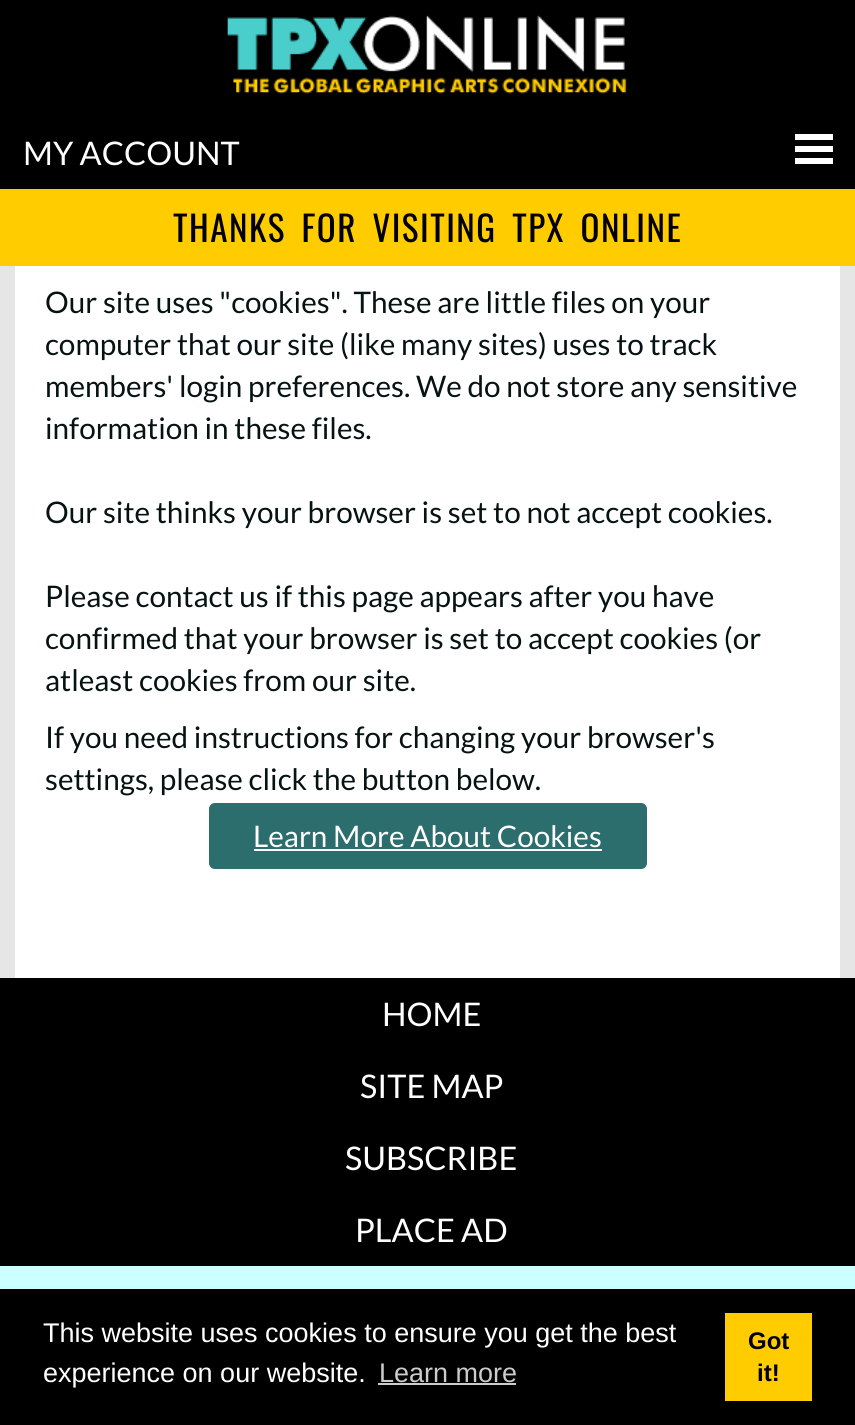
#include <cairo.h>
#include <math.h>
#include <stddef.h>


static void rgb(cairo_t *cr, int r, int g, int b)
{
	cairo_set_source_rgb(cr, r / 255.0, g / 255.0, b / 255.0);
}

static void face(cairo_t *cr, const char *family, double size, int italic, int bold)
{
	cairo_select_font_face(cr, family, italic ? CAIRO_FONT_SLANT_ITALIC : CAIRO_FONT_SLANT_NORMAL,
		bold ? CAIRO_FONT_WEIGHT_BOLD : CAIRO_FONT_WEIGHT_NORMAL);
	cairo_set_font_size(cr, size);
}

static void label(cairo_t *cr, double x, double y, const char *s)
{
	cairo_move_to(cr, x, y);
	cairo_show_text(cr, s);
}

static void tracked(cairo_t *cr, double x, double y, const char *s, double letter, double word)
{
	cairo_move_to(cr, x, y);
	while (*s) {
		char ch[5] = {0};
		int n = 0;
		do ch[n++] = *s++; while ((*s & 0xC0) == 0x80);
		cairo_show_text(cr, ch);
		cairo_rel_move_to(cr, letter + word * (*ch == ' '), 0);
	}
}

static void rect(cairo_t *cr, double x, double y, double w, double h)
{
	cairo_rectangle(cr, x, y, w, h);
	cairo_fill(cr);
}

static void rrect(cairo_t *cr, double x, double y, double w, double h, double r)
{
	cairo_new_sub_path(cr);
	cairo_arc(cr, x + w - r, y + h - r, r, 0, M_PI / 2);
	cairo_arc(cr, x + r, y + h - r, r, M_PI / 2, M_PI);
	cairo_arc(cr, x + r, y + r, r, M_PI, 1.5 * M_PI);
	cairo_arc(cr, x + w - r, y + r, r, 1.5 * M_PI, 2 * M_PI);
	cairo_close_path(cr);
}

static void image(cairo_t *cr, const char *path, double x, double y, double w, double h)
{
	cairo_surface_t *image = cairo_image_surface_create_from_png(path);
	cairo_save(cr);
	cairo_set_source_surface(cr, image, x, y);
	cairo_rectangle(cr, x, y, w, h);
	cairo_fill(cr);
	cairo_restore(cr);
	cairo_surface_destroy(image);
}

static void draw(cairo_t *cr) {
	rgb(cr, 204, 255, 255);
	cairo_paint(cr);
	rgb(cr, 0, 0, 0);
	rect(cr, 0, 0, 855, 189);
	image(cr, "image0.png", 227, 15, 400, 79);
	face(cr, "Lato", 32.5, 0, 0);
	rgb(cr, 255, 255, 255);
	label(cr, 23, 165, "MY ACCOUNT");
	rect(cr, 795, 134, 38, 6);
	rect(cr, 795, 146, 38, 6);
	rect(cr, 795, 158, 38, 6);
	rgb(cr, 230, 230, 230);
	rect(cr, 0, 266, 855, 712);
	rgb(cr, 255, 204, 0);
	rect(cr, 0, 189, 855, 77);
	face(cr, "Oswald", 35.1, 0, 0);
	rgb(cr, 0, 0, 0);
	tracked(cr, 173, 242, "THANKS FOR VISITING TPX ONLINE", 1.5, 6);
	rgb(cr, 255, 255, 255);
	rect(cr, 15, 266, 825, 712);
	face(cr, "Lato", 29.7, 0, 0);
	rgb(cr, 7, 18, 18);
	label(cr, 45, 313, "Our site uses \"cookies\". These are little files on your");
	label(cr, 45, 355, "computer that our site (like many sites) uses to track");
	label(cr, 45, 397, "members' login preferences. We do not store any sensitive");
	label(cr, 45, 439, "information in these files.");
	label(cr, 45, 523, "Our site thinks your browser is set to not accept cookies.");
	label(cr, 45, 607, "Please contact us if this page appears after you have");
	label(cr, 45, 649, "confirmed that your browser is set to accept cookies (or");
	label(cr, 45, 691, "atleast cookies from our site.");
	label(cr, 45, 748, "If you need instructions for changing your browser's");
	label(cr, 45, 790, "settings, please click the button below.");
	rgb(cr, 44, 109, 109);
	rrect(cr, 209, 803, 438, 66, 6);
	cairo_fill(cr);
	rgb(cr, 255, 255, 255);
	label(cr, 253, 847, "Learn More About Cookies");
	rect(cr, 254, 849, 348, 2);
	rgb(cr, 0, 0, 0);
	rect(cr, 0, 978, 855, 288);
	face(cr, "Lato", 32.5, 0, 0);
	rgb(cr, 255, 255, 255);
	label(cr, 382, 1026, "HOME");
	label(cr, 360, 1098, "SITE MAP");
	label(cr, 345, 1170, "SUBSCRIBE");
	label(cr, 355, 1242, "PLACE AD");
	rgb(cr, 0, 0, 0);
	rect(cr, 0, 1289, 855, 136);
	face(cr, "Liberation Sans", 27, 0, 0);
	rgb(cr, 255, 255, 255);
	label(cr, 43, 1342, "This website uses cookies to ensure you get the best");
	label(cr, 43, 1382, "experience on our website.");
	rgb(cr, 204, 204, 204);
	label(cr, 379, 1382, "Learn more");
	rect(cr, 378, 1383, 138, 2);
	rgb(cr, 255, 204, 0);
	rect(cr, 725, 1313, 87, 88);
	face(cr, "Liberation Sans", 24, 0, 1);
	rgb(cr, 0, 0, 0);
	label(cr, 748, 1349, "Got");
	label(cr, 757, 1381, "it!");
}

int main(void) {
	cairo_surface_t *surface = cairo_image_surface_create(CAIRO_FORMAT_RGB24, 855, 1425);
	cairo_t *cr = cairo_create(surface);
	cairo_font_options_t *options = cairo_font_options_create();
	cairo_font_options_set_hint_metrics(options, CAIRO_HINT_METRICS_OFF);
	cairo_font_options_set_hint_style(options, CAIRO_HINT_STYLE_NONE);
	cairo_set_font_options(cr, options);
	cairo_set_miter_limit(cr, 4);
	draw(cr);
	cairo_surface_write_to_png(surface, "render.png");
	cairo_font_options_destroy(options);
	cairo_destroy(cr);
	cairo_surface_destroy(surface);
	return 0;
}
